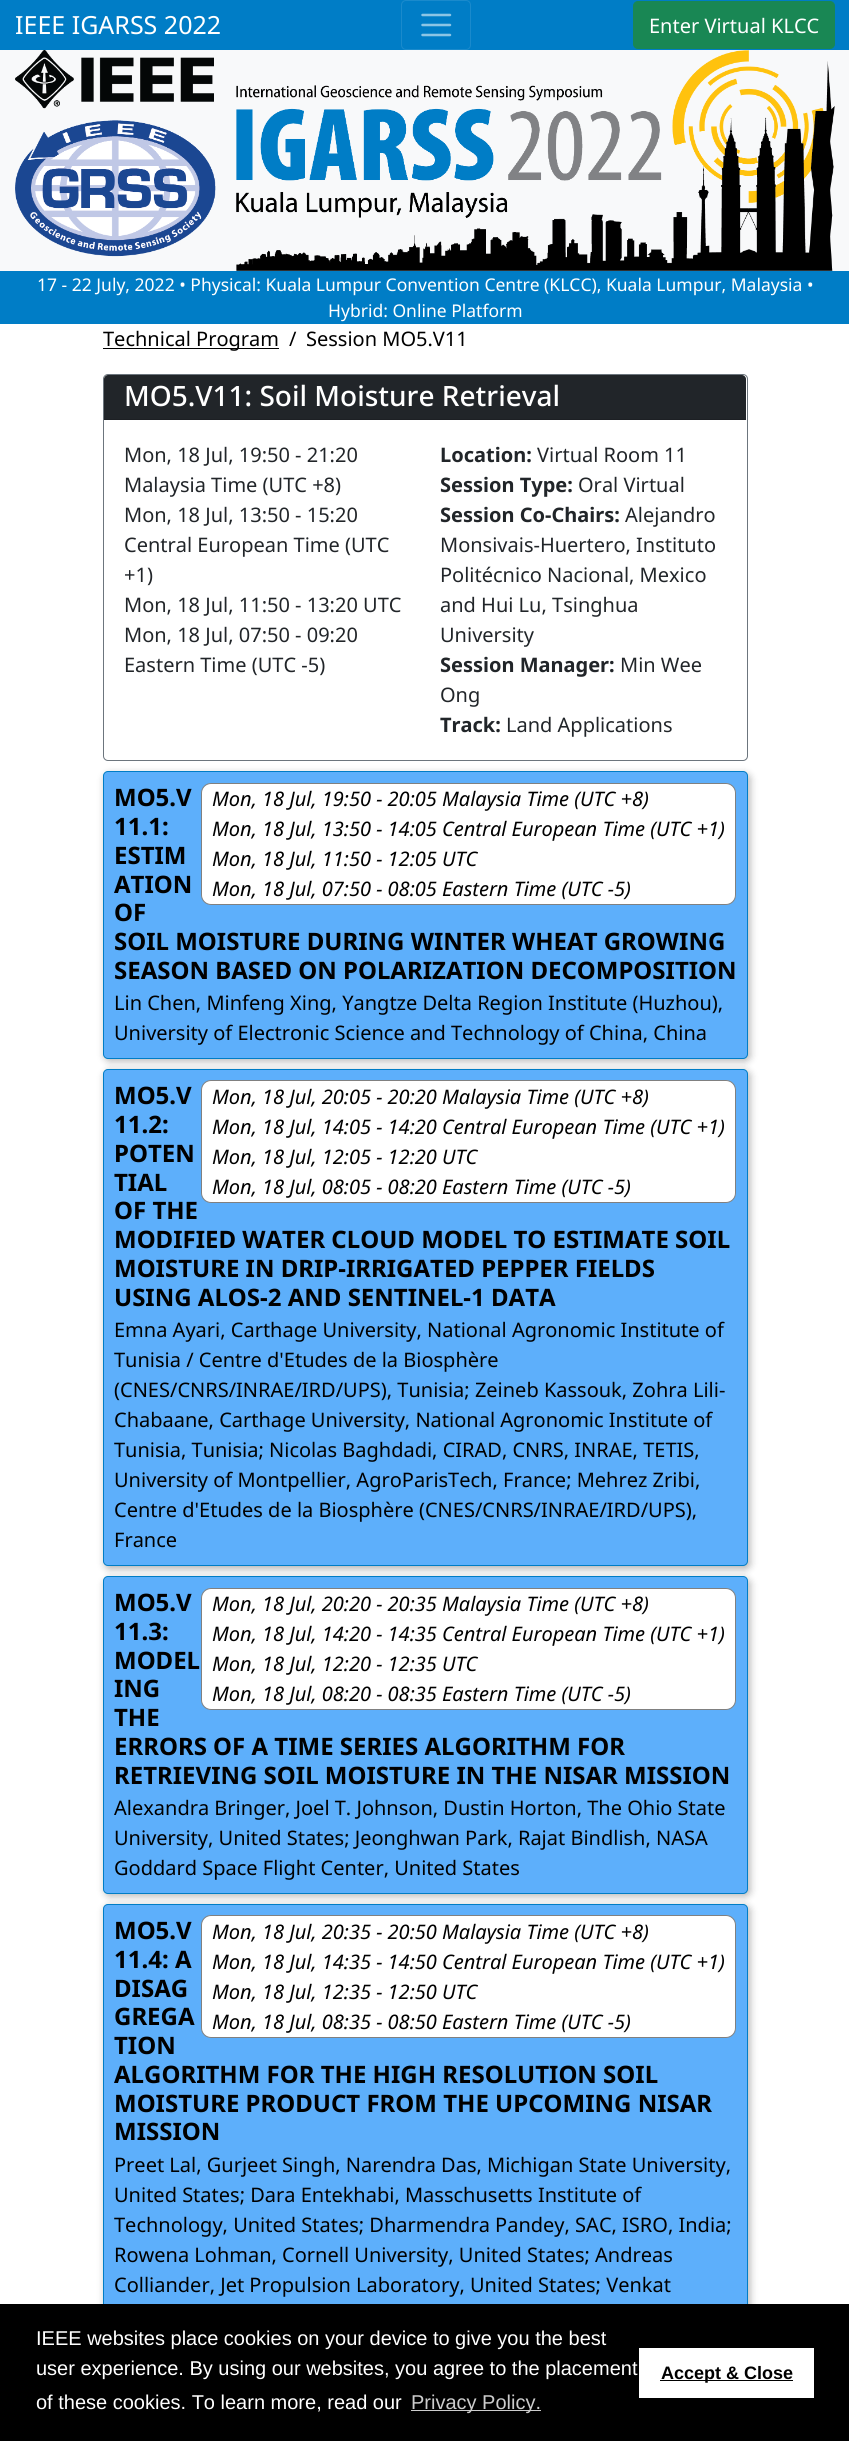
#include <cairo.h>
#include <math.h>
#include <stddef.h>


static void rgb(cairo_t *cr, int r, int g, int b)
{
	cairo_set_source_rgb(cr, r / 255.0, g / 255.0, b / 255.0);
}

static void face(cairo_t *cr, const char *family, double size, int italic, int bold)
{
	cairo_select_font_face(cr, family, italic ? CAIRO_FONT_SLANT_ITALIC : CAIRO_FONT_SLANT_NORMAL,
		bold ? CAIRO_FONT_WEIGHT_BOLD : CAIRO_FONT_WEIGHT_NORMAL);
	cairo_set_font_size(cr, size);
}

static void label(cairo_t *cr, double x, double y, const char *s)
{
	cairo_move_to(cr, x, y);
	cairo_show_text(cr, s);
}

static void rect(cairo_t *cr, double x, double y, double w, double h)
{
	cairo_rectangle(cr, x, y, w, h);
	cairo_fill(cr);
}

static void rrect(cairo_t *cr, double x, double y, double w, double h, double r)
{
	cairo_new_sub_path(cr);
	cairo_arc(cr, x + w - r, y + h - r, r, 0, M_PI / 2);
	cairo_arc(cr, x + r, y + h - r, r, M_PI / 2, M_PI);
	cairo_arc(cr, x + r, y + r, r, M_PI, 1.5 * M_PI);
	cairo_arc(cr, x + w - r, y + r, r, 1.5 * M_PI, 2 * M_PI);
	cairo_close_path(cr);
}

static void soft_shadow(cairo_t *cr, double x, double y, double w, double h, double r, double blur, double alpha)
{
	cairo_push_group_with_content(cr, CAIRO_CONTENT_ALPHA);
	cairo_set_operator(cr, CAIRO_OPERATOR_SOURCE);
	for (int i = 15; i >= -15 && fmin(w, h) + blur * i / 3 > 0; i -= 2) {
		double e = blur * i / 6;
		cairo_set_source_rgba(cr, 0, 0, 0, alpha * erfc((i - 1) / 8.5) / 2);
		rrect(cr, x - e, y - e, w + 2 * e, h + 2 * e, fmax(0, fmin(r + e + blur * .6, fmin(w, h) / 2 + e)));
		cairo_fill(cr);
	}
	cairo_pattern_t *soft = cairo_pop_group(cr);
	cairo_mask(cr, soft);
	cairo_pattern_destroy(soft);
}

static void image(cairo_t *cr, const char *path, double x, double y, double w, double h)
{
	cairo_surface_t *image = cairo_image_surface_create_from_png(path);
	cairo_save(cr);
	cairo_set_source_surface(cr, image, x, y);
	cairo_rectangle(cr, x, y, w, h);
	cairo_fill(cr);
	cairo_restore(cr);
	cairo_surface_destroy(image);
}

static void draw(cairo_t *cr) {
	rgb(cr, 255, 255, 255);
	cairo_paint(cr);
	rgb(cr, 0, 125, 198);
	rect(cr, 0, 0, 849, 50);
	face(cr, "Noto Sans", 25, 0, 0);
	rgb(cr, 255, 255, 255);
	label(cr, 15, 34, "IEEE IGARSS 2022");
	rrect(cr, 401.5, 0.5, 69, 49, 4.5);
	rgb(cr, 26, 138, 204);
	cairo_set_line_width(cr, 1);
	cairo_stroke(cr);
	cairo_new_path(cr);
	cairo_move_to(cr, 422.5, 15);
	cairo_line_to(cr, 450, 15);
	cairo_move_to(cr, 422.5, 25);
	cairo_line_to(cr, 450, 25);
	cairo_move_to(cr, 422.5, 35);
	cairo_line_to(cr, 450, 35);
	rgb(cr, 140, 197, 229);
	cairo_set_line_width(cr, 2.5);
	cairo_set_line_cap(cr, CAIRO_LINE_CAP_ROUND);
	cairo_stroke(cr);
	rgb(cr, 25, 135, 84);
	rrect(cr, 633.5, 1.5, 201, 47, 4.5);
	cairo_fill_preserve(cr);
	cairo_set_line_width(cr, 1);
	cairo_set_line_cap(cr, CAIRO_LINE_CAP_BUTT);
	cairo_stroke(cr);
	face(cr, "Noto Sans", 20, 0, 0);
	rgb(cr, 255, 255, 255);
	label(cr, 649, 33, "Enter Virtual KLCC");
	rgb(cr, 248, 249, 250);
	rect(cr, 0, 50, 849, 221);
	image(cr, "image0.png", 15, 50, 820, 221);
	rgb(cr, 0, 125, 198);
	rect(cr, 0, 271, 849, 53);
	face(cr, "Noto Sans", 17.5, 0, 0);
	rgb(cr, 255, 255, 255);
	label(cr, 37, 291, "17 - 22 July, 2022 • Physical: Kuala Lumpur Convention Centre (KLCC), Kuala Lumpur, Malaysia •");
	label(cr, 328, 317, "Hybrid: Online Platform");
	rgb(cr, 0, 0, 0);
	rect(cr, 103, 348, 176, 1);
	face(cr, "Noto Sans", 20, 0, 0);
	label(cr, 103, 346, "Technical Program");
	label(cr, 289, 346, "/");
	label(cr, 306, 346, "Session MO5.V11");
	rrect(cr, 103.5, 374.5, 644, 386, 4.5);
	rgb(cr, 108, 117, 125);
	cairo_stroke(cr);
	rgb(cr, 33, 37, 41);
	cairo_new_path(cr);
	cairo_move_to(cr, 108, 375);
	cairo_line_to(cr, 742, 375);
	cairo_curve_to(cr, 744, 375, 746, 377, 746, 379);
	cairo_line_to(cr, 746, 420);
	cairo_line_to(cr, 104, 420);
	cairo_line_to(cr, 104, 379);
	cairo_curve_to(cr, 104, 377, 106, 375, 108, 375);
	cairo_close_path(cr);
	cairo_fill(cr);
	rgb(cr, 29, 32, 36);
	rect(cr, 104, 419, 642, 1);
	face(cr, "Noto Sans Medium", 28, 0, 0);
	rgb(cr, 255, 255, 255);
	label(cr, 124, 406, "MO5.V11: Soil Moisture Retrieval");
	face(cr, "Noto Sans", 20, 0, 0);
	rgb(cr, 33, 37, 41);
	label(cr, 124, 462, "Mon, 18 Jul, 19:50 - 21:20");
	label(cr, 124, 492, "Malaysia Time (UTC +8)");
	label(cr, 124, 522, "Mon, 18 Jul, 13:50 - 15:20");
	label(cr, 124, 552, "Central European Time (UTC");
	label(cr, 124, 582, "+1)");
	label(cr, 124, 612, "Mon, 18 Jul, 11:50 - 13:20 UTC");
	label(cr, 124, 642, "Mon, 18 Jul, 07:50 - 09:20");
	label(cr, 124, 672, "Eastern Time (UTC -5)");
	face(cr, "Noto Sans", 20, 0, 1);
	label(cr, 440, 462, "Location:");
	face(cr, "Noto Sans", 20, 0, 0);
	label(cr, 537, 462, "Virtual Room 11");
	face(cr, "Noto Sans", 20, 0, 1);
	label(cr, 440, 492, "Session Type:");
	face(cr, "Noto Sans", 20, 0, 0);
	label(cr, 578, 492, "Oral Virtual");
	face(cr, "Noto Sans", 20, 0, 1);
	label(cr, 440, 522, "Session Co-Chairs:");
	face(cr, "Noto Sans", 20, 0, 0);
	label(cr, 625, 522, "Alejandro");
	label(cr, 440, 552, "Monsivais-Huertero, Instituto");
	label(cr, 440, 582, "Politécnico Nacional, Mexico");
	label(cr, 440, 612, "and Hui Lu, Tsinghua");
	label(cr, 440, 642, "University");
	face(cr, "Noto Sans", 20, 0, 1);
	label(cr, 440, 672, "Session Manager:");
	face(cr, "Noto Sans", 20, 0, 0);
	label(cr, 620, 672, "Min Wee");
	label(cr, 440, 702, "Ong");
	face(cr, "Noto Sans", 20, 0, 1);
	label(cr, 440, 732, "Track:");
	face(cr, "Noto Sans", 20, 0, 0);
	label(cr, 506, 732, "Land Applications");
	rgb(cr, 0, 0, 0);
	soft_shadow(cr, 105, 774, 645, 287, 5, 4, 0.3);
	rgb(cr, 93, 175, 251);
	rrect(cr, 103.5, 771.5, 644, 287, 4.5);
	cairo_fill_preserve(cr);
	rgb(cr, 0, 125, 198);
	cairo_stroke(cr);
	face(cr, "Noto Sans", 24, 0, 1);
	rgb(cr, 0, 0, 0);
	label(cr, 114, 806, "MO5.V");
	label(cr, 114, 835, "11.1:");
	label(cr, 114, 864, "ESTIM");
	label(cr, 114, 893, "ATION");
	label(cr, 114, 921, "OF");
	label(cr, 114, 950, "SOIL MOISTURE DURING WINTER WHEAT GROWING");
	label(cr, 114, 979, "SEASON BASED ON POLARIZATION DECOMPOSITION");
	rgb(cr, 255, 255, 255);
	rrect(cr, 201.5, 783.5, 534, 121, 9.5);
	cairo_fill_preserve(cr);
	rgb(cr, 128, 128, 128);
	cairo_stroke(cr);
	face(cr, "Noto Sans", 20, 1, 0);
	rgb(cr, 0, 0, 0);
	label(cr, 212, 806, "Mon, 18 Jul, 19:50 - 20:05 Malaysia Time (UTC +8)");
	label(cr, 212, 836, "Mon, 18 Jul, 13:50 - 14:05 Central European Time (UTC +1)");
	label(cr, 212, 866, "Mon, 18 Jul, 11:50 - 12:05 UTC");
	label(cr, 212, 896, "Mon, 18 Jul, 07:50 - 08:05 Eastern Time (UTC -5)");
	face(cr, "Noto Sans", 20, 0, 0);
	label(cr, 114, 1010, "Lin Chen, Minfeng Xing, Yangtze Delta Region Institute (Huzhou),");
	label(cr, 114, 1040, "University of Electronic Science and Technology of China, China");
	rgb(cr, 0, 0, 0);
	soft_shadow(cr, 105, 1071, 645, 498, 5, 4, 0.3);
	rgb(cr, 93, 175, 251);
	rrect(cr, 103.5, 1069.5, 644, 496, 4.5);
	cairo_fill_preserve(cr);
	rgb(cr, 0, 125, 198);
	cairo_stroke(cr);
	face(cr, "Noto Sans", 24, 0, 1);
	rgb(cr, 0, 0, 0);
	label(cr, 114, 1104, "MO5.V");
	label(cr, 114, 1133, "11.2:");
	label(cr, 114, 1162, "POTEN");
	label(cr, 114, 1191, "TIAL");
	label(cr, 114, 1219, "OF THE");
	label(cr, 114, 1248, "MODIFIED WATER CLOUD MODEL TO ESTIMATE SOIL");
	label(cr, 114, 1277, "MOISTURE IN DRIP-IRRIGATED PEPPER FIELDS");
	label(cr, 114, 1306, "USING ALOS-2 AND SENTINEL-1 DATA");
	rgb(cr, 255, 255, 255);
	rrect(cr, 201.5, 1080.5, 534, 122, 9.5);
	cairo_fill_preserve(cr);
	rgb(cr, 128, 128, 128);
	cairo_stroke(cr);
	face(cr, "Noto Sans", 20, 1, 0);
	rgb(cr, 0, 0, 0);
	label(cr, 212, 1104, "Mon, 18 Jul, 20:05 - 20:20 Malaysia Time (UTC +8)");
	label(cr, 212, 1134, "Mon, 18 Jul, 14:05 - 14:20 Central European Time (UTC +1)");
	label(cr, 212, 1164, "Mon, 18 Jul, 12:05 - 12:20 UTC");
	label(cr, 212, 1194, "Mon, 18 Jul, 08:05 - 08:20 Eastern Time (UTC -5)");
	face(cr, "Noto Sans", 20, 0, 0);
	label(cr, 114, 1337, "Emna Ayari, Carthage University, National Agronomic Institute of");
	label(cr, 114, 1367, "Tunisia / Centre d'Etudes de la Biosphère");
	label(cr, 114, 1397, "(CNES/CNRS/INRAE/IRD/UPS), Tunisia; Zeineb Kassouk, Zohra Lili-");
	label(cr, 114, 1427, "Chabaane, Carthage University, National Agronomic Institute of");
	label(cr, 114, 1457, "Tunisia, Tunisia; Nicolas Baghdadi, CIRAD, CNRS, INRAE, TETIS,");
	label(cr, 114, 1487, "University of Montpellier, AgroParisTech, France; Mehrez Zribi,");
	label(cr, 114, 1517, "Centre d'Etudes de la Biosphère (CNES/CNRS/INRAE/IRD/UPS),");
	label(cr, 114, 1547, "France");
	rgb(cr, 0, 0, 0);
	soft_shadow(cr, 105, 1579, 645, 317, 5, 4, 0.3);
	rgb(cr, 93, 175, 251);
	rrect(cr, 103.5, 1576.5, 644, 317, 4.5);
	cairo_fill_preserve(cr);
	rgb(cr, 0, 125, 198);
	cairo_stroke(cr);
	face(cr, "Noto Sans", 24, 0, 1);
	rgb(cr, 0, 0, 0);
	label(cr, 114, 1611, "MO5.V");
	label(cr, 114, 1640, "11.3:");
	label(cr, 114, 1669, "MODEL");
	label(cr, 114, 1697, "ING");
	label(cr, 114, 1726, "THE");
	label(cr, 114, 1755, "ERRORS OF A TIME SERIES ALGORITHM FOR");
	label(cr, 114, 1784, "RETRIEVING SOIL MOISTURE IN THE NISAR MISSION");
	rgb(cr, 255, 255, 255);
	rrect(cr, 201.5, 1588.5, 534, 121, 9.5);
	cairo_fill_preserve(cr);
	rgb(cr, 128, 128, 128);
	cairo_stroke(cr);
	face(cr, "Noto Sans", 20, 1, 0);
	rgb(cr, 0, 0, 0);
	label(cr, 212, 1611, "Mon, 18 Jul, 20:20 - 20:35 Malaysia Time (UTC +8)");
	label(cr, 212, 1641, "Mon, 18 Jul, 14:20 - 14:35 Central European Time (UTC +1)");
	label(cr, 212, 1671, "Mon, 18 Jul, 12:20 - 12:35 UTC");
	label(cr, 212, 1701, "Mon, 18 Jul, 08:20 - 08:35 Eastern Time (UTC -5)");
	face(cr, "Noto Sans", 20, 0, 0);
	label(cr, 114, 1815, "Alexandra Bringer, Joel T. Johnson, Dustin Horton, The Ohio State");
	label(cr, 114, 1845, "University, United States; Jeonghwan Park, Rajat Bindlish, NASA");
	label(cr, 114, 1875, "Goddard Space Flight Center, United States");
	rgb(cr, 0, 0, 0);
	soft_shadow(cr, 105, 1906, 645, 438, 5, 4, 0.3);
	rgb(cr, 93, 175, 251);
	rrect(cr, 103.5, 1904.5, 644, 436, 4.5);
	cairo_fill_preserve(cr);
	rgb(cr, 0, 125, 198);
	cairo_stroke(cr);
	face(cr, "Noto Sans", 24, 0, 1);
	rgb(cr, 0, 0, 0);
	label(cr, 114, 1939, "MO5.V");
	label(cr, 114, 1968, "11.4: A");
	label(cr, 114, 1997, "DISAG");
	label(cr, 114, 2025, "GREGA");
	label(cr, 114, 2054, "TION");
	label(cr, 114, 2083, "ALGORITHM FOR THE HIGH RESOLUTION SOIL");
	label(cr, 114, 2112, "MOISTURE PRODUCT FROM THE UPCOMING NISAR");
	label(cr, 114, 2140, "MISSION");
	rgb(cr, 255, 255, 255);
	rrect(cr, 201.5, 1915.5, 534, 122, 9.5);
	cairo_fill_preserve(cr);
	rgb(cr, 128, 128, 128);
	cairo_stroke(cr);
	face(cr, "Noto Sans", 20, 1, 0);
	rgb(cr, 0, 0, 0);
	label(cr, 212, 1939, "Mon, 18 Jul, 20:35 - 20:50 Malaysia Time (UTC +8)");
	label(cr, 212, 1969, "Mon, 18 Jul, 14:35 - 14:50 Central European Time (UTC +1)");
	label(cr, 212, 1999, "Mon, 18 Jul, 12:35 - 12:50 UTC");
	label(cr, 212, 2029, "Mon, 18 Jul, 08:35 - 08:50 Eastern Time (UTC -5)");
	face(cr, "Noto Sans", 20, 0, 0);
	label(cr, 114, 2172, "Preet Lal, Gurjeet Singh, Narendra Das, Michigan State University,");
	label(cr, 114, 2202, "United States; Dara Entekhabi, Masschusetts Institute of");
	label(cr, 114, 2232, "Technology, United States; Dharmendra Pandey, SAC, ISRO, India;");
	label(cr, 114, 2262, "Rowena Lohman, Cornell University, United States; Andreas");
	label(cr, 114, 2292, "Colliander, Jet Propulsion Laboratory, United States; Venkat");
	rect(cr, 0, 2304, 849, 137);
	face(cr, "Liberation Sans", 20, 0, 0);
	rgb(cr, 255, 255, 255);
	label(cr, 36, 2345, "IEEE websites place cookies on your device to give you the best");
	label(cr, 36, 2375, "user experience. By using our websites, you agree to the placement");
	label(cr, 36, 2409, "of these cookies. To learn more, read our");
	rgb(cr, 204, 204, 204);
	rect(cr, 411, 2410, 130, 1);
	label(cr, 411, 2409, "Privacy Policy.");
	rgb(cr, 255, 255, 255);
	rect(cr, 639, 2348, 175, 50);
	rgb(cr, 0, 0, 0);
	rect(cr, 660, 2380, 133, 1);
	face(cr, "Liberation Sans", 18, 0, 1);
	label(cr, 661, 2379, "Accept & Close");
}

int main(void) {
	cairo_surface_t *surface = cairo_image_surface_create(CAIRO_FORMAT_RGB24, 849, 2441);
	cairo_t *cr = cairo_create(surface);
	cairo_font_options_t *options = cairo_font_options_create();
	cairo_font_options_set_hint_metrics(options, CAIRO_HINT_METRICS_OFF);
	cairo_font_options_set_hint_style(options, CAIRO_HINT_STYLE_NONE);
	cairo_set_font_options(cr, options);
	cairo_set_miter_limit(cr, 4);
	draw(cr);
	cairo_surface_write_to_png(surface, "render.png");
	cairo_font_options_destroy(options);
	cairo_destroy(cr);
	cairo_surface_destroy(surface);
	return 0;
}
